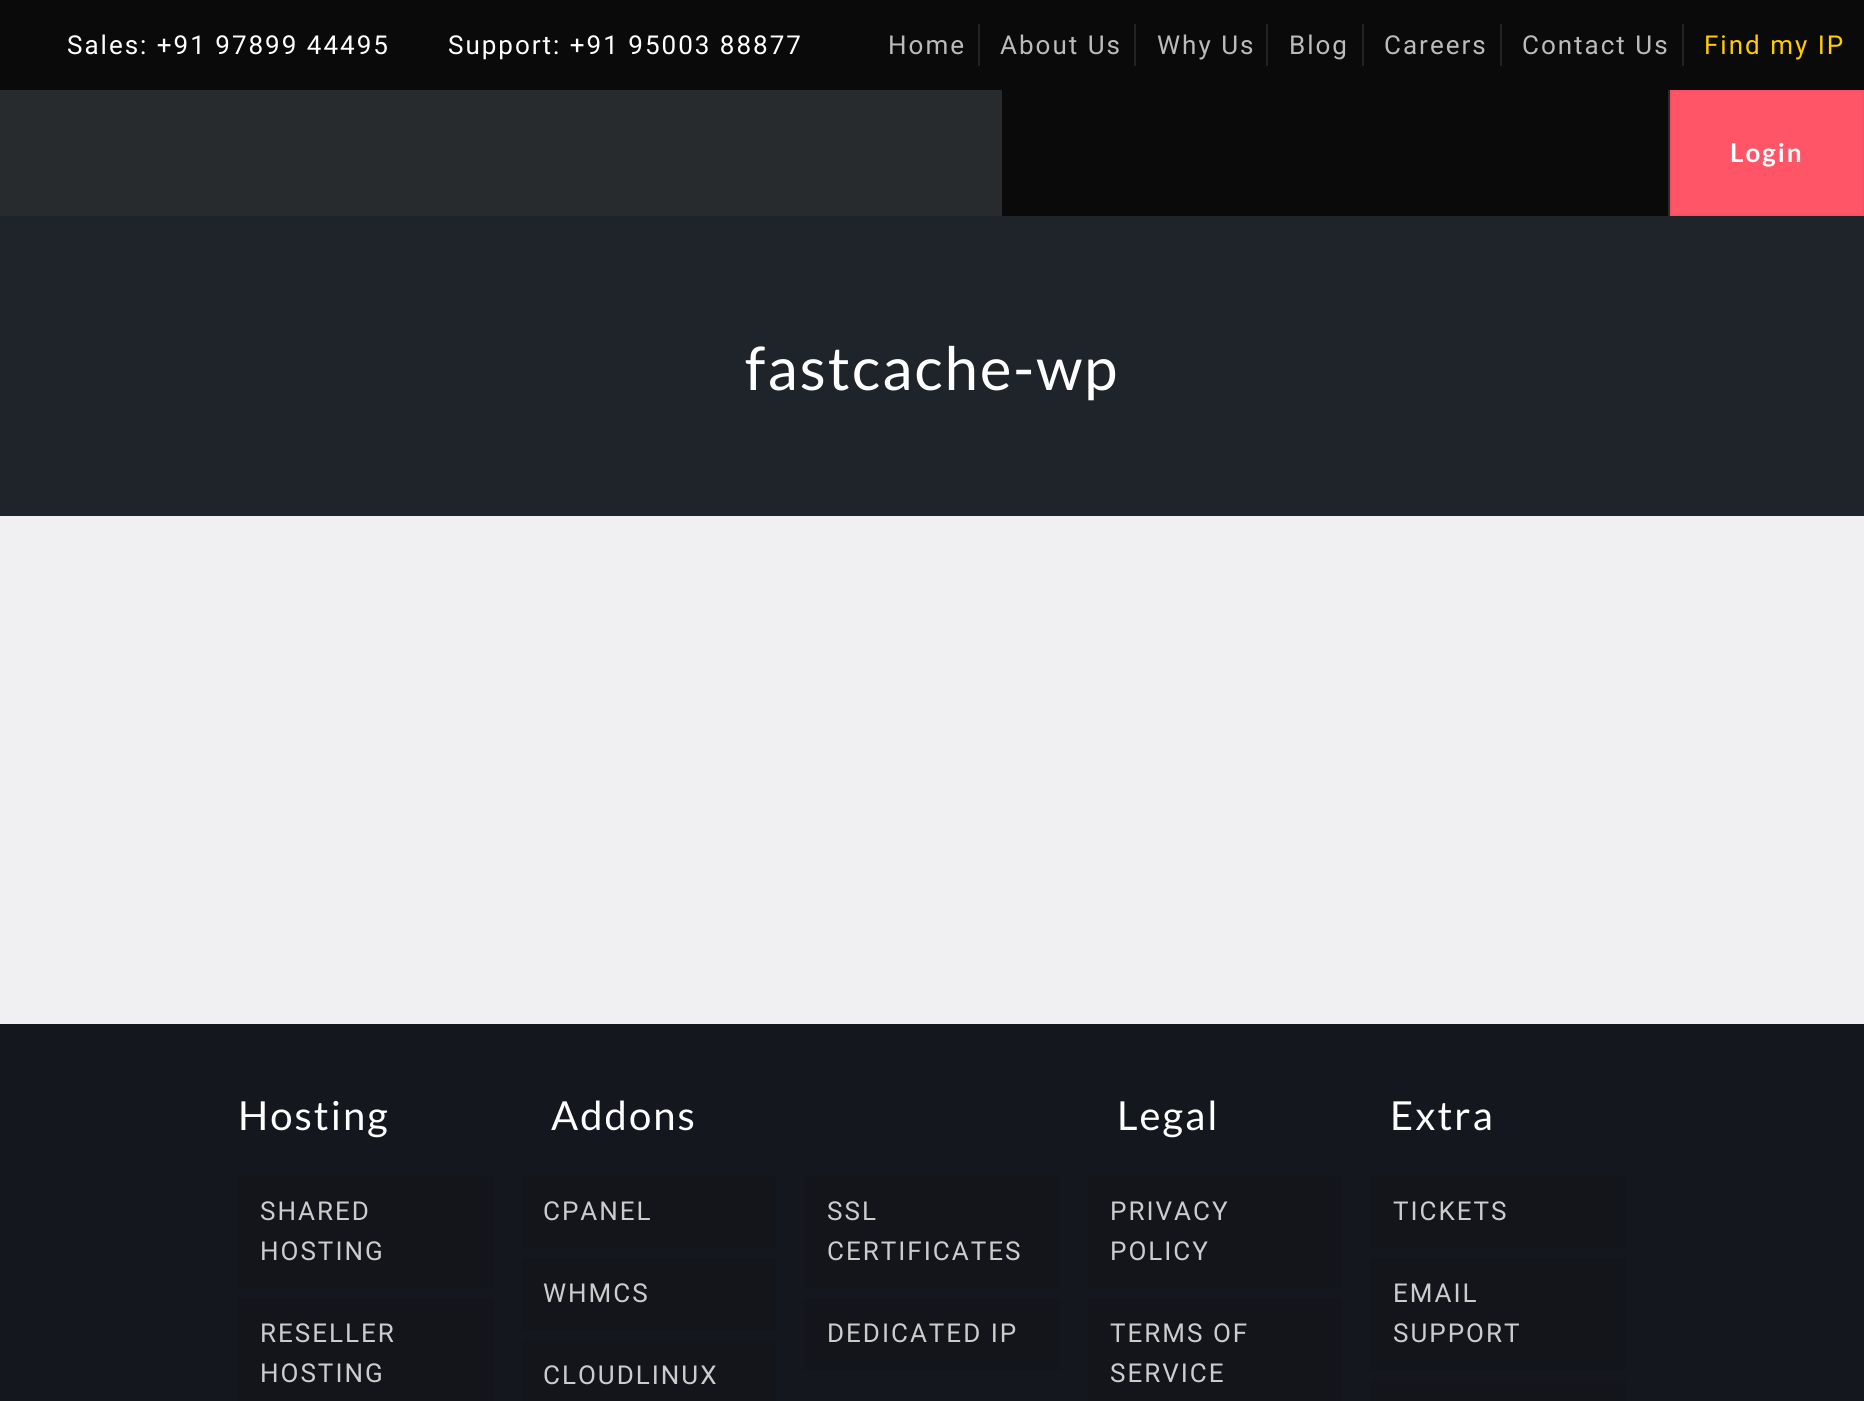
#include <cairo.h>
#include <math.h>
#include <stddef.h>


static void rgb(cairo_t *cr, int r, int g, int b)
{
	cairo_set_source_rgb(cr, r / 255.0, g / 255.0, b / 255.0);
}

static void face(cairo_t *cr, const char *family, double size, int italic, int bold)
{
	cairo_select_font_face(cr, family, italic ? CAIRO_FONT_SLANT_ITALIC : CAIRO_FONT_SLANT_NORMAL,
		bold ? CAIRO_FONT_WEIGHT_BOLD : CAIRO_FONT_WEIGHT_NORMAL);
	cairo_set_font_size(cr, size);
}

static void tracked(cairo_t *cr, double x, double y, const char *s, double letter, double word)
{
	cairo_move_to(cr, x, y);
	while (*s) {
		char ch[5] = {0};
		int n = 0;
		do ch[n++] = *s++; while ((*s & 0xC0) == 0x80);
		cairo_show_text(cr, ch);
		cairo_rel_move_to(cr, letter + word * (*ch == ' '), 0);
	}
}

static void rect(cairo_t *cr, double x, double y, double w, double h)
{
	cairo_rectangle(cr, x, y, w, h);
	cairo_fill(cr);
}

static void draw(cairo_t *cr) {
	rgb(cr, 240, 240, 242);
	cairo_paint(cr);
	rgb(cr, 31, 35, 42);
	rect(cr, 0, 216, 1864, 300);
	rgb(cr, 10, 10, 10);
	rect(cr, 0, 0, 1864, 90);
	face(cr, "Roboto", 26, 0, 0);
	rgb(cr, 255, 255, 255);
	tracked(cr, 67, 54, "Sales: +91 97899 44495", 2, 0);
	tracked(cr, 448, 54, "Support: +91 95003 88877", 2, 0);
	rgb(cr, 35, 35, 35);
	rect(cr, 978, 24, 2, 42);
	rgb(cr, 187, 187, 187);
	tracked(cr, 888, 54, "Home", 2, 0);
	rgb(cr, 35, 35, 35);
	rect(cr, 1134, 24, 2, 42);
	rgb(cr, 187, 187, 187);
	tracked(cr, 1000, 54, "About Us", 2, 0);
	rgb(cr, 35, 35, 35);
	rect(cr, 1266, 24, 2, 42);
	rgb(cr, 187, 187, 187);
	tracked(cr, 1157, 54, "Why Us", 2, 0);
	rgb(cr, 35, 35, 35);
	rect(cr, 1362, 24, 2, 42);
	rgb(cr, 187, 187, 187);
	tracked(cr, 1289, 54, "Blog", 2, 0);
	rgb(cr, 35, 35, 35);
	rect(cr, 1500, 24, 2, 42);
	rgb(cr, 187, 187, 187);
	tracked(cr, 1384, 54, "Careers", 2, 0);
	rgb(cr, 35, 35, 35);
	rect(cr, 1682, 24, 2, 42);
	rgb(cr, 187, 187, 187);
	tracked(cr, 1522, 54, "Contact Us", 2, 0);
	rgb(cr, 255, 204, 0);
	tracked(cr, 1704, 54, "Find my IP", 2, 0);
	rgb(cr, 10, 10, 10);
	rect(cr, 1002, 90, 666, 126);
	rgb(cr, 40, 43, 45);
	rect(cr, 0, 90, 1002, 126);
	rect(cr, 1668, 90, 2, 126);
	rgb(cr, 255, 85, 102);
	cairo_rectangle(cr, 1671, 91, 192, 124);
	cairo_fill_preserve(cr);
	rgb(cr, 247, 82, 99);
	cairo_stroke(cr);
	face(cr, "Lato", 26, 0, 1);
	rgb(cr, 255, 255, 255);
	tracked(cr, 1730, 162, "Login", 2, 0);
	face(cr, "Lato", 60, 0, 0);
	tracked(cr, 745, 390, "fastcache-wp", 2, 0);
	rgb(cr, 21, 23, 30);
	rect(cr, 0, 1024, 1864, 377);
	face(cr, "Lato", 40, 0, 0);
	rgb(cr, 255, 255, 255);
	tracked(cr, 238, 1130, "Hosting", 2, 0);
	rgb(cr, 19, 21, 27);
	rect(cr, 238, 1176, 256, 112);
	face(cr, "Roboto", 26, 0, 0);
	rgb(cr, 204, 204, 204);
	tracked(cr, 260, 1220, "SHARED", 2, 0);
	tracked(cr, 260, 1260, "HOSTING", 2, 0);
	rgb(cr, 19, 21, 27);
	rect(cr, 238, 1298, 256, 103);
	rgb(cr, 204, 204, 204);
	tracked(cr, 260, 1342, "RESELLER", 2, 0);
	tracked(cr, 260, 1382, "HOSTING", 2, 0);
	face(cr, "Lato", 40, 0, 0);
	rgb(cr, 255, 255, 255);
	tracked(cr, 551, 1130, "Addons", 2, 0);
	rgb(cr, 19, 21, 27);
	rect(cr, 522, 1176, 254, 72);
	face(cr, "Roboto", 26, 0, 0);
	rgb(cr, 204, 204, 204);
	tracked(cr, 543, 1220, "CPANEL", 2, 0);
	rgb(cr, 19, 21, 27);
	rect(cr, 522, 1258, 254, 72);
	rgb(cr, 204, 204, 204);
	tracked(cr, 543, 1302, "WHMCS", 2, 0);
	rgb(cr, 19, 21, 27);
	rect(cr, 522, 1340, 254, 61);
	rgb(cr, 204, 204, 204);
	tracked(cr, 543, 1384, "CLOUDLINUX", 2, 0);
	rgb(cr, 19, 21, 27);
	rect(cr, 804, 1176, 256, 112);
	rgb(cr, 204, 204, 204);
	tracked(cr, 827, 1220, "SSL", 2, 0);
	tracked(cr, 827, 1260, "CERTIFICATES", 2, 0);
	rgb(cr, 19, 21, 27);
	rect(cr, 804, 1298, 256, 72);
	rgb(cr, 204, 204, 204);
	tracked(cr, 827, 1342, "DEDICATED IP", 2, 0);
	face(cr, "Lato", 40, 0, 0);
	rgb(cr, 255, 255, 255);
	tracked(cr, 1117, 1130, "Legal", 2, 0);
	rgb(cr, 19, 21, 27);
	rect(cr, 1088, 1176, 254, 112);
	face(cr, "Roboto", 26, 0, 0);
	rgb(cr, 204, 204, 204);
	tracked(cr, 1110, 1220, "PRIVACY", 2, 0);
	tracked(cr, 1110, 1260, "POLICY", 2, 0);
	rgb(cr, 19, 21, 27);
	rect(cr, 1088, 1298, 254, 103);
	rgb(cr, 204, 204, 204);
	tracked(cr, 1110, 1342, "TERMS OF", 2, 0);
	tracked(cr, 1110, 1382, "SERVICE", 2, 0);
	face(cr, "Lato", 40, 0, 0);
	rgb(cr, 255, 255, 255);
	tracked(cr, 1390, 1130, "Extra", 2, 0);
	rgb(cr, 19, 21, 27);
	rect(cr, 1370, 1176, 256, 72);
	face(cr, "Roboto", 26, 0, 0);
	rgb(cr, 204, 204, 204);
	tracked(cr, 1393, 1220, "TICKETS", 2, 0);
	rgb(cr, 19, 21, 27);
	rect(cr, 1370, 1258, 256, 112);
	rgb(cr, 204, 204, 204);
	tracked(cr, 1393, 1302, "EMAIL", 2, 0);
	tracked(cr, 1393, 1342, "SUPPORT", 2, 0);
	rgb(cr, 19, 21, 27);
	rect(cr, 1370, 1380, 256, 21);
}

int main(void) {
	cairo_surface_t *surface = cairo_image_surface_create(CAIRO_FORMAT_RGB24, 1864, 1401);
	cairo_t *cr = cairo_create(surface);
	cairo_font_options_t *options = cairo_font_options_create();
	cairo_font_options_set_hint_metrics(options, CAIRO_HINT_METRICS_OFF);
	cairo_font_options_set_hint_style(options, CAIRO_HINT_STYLE_NONE);
	cairo_set_font_options(cr, options);
	cairo_set_miter_limit(cr, 4);
	draw(cr);
	cairo_surface_write_to_png(surface, "render.png");
	cairo_font_options_destroy(options);
	cairo_destroy(cr);
	cairo_surface_destroy(surface);
	return 0;
}
